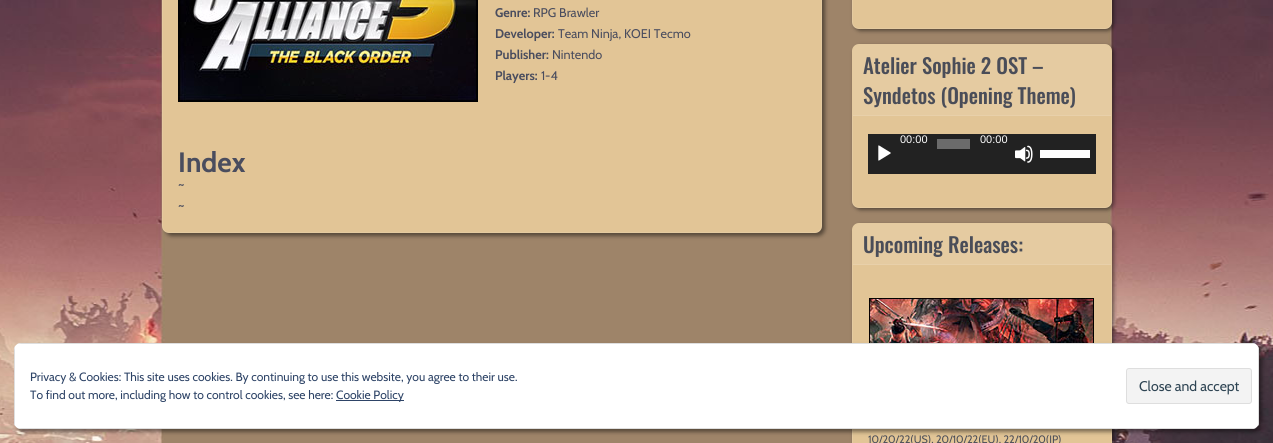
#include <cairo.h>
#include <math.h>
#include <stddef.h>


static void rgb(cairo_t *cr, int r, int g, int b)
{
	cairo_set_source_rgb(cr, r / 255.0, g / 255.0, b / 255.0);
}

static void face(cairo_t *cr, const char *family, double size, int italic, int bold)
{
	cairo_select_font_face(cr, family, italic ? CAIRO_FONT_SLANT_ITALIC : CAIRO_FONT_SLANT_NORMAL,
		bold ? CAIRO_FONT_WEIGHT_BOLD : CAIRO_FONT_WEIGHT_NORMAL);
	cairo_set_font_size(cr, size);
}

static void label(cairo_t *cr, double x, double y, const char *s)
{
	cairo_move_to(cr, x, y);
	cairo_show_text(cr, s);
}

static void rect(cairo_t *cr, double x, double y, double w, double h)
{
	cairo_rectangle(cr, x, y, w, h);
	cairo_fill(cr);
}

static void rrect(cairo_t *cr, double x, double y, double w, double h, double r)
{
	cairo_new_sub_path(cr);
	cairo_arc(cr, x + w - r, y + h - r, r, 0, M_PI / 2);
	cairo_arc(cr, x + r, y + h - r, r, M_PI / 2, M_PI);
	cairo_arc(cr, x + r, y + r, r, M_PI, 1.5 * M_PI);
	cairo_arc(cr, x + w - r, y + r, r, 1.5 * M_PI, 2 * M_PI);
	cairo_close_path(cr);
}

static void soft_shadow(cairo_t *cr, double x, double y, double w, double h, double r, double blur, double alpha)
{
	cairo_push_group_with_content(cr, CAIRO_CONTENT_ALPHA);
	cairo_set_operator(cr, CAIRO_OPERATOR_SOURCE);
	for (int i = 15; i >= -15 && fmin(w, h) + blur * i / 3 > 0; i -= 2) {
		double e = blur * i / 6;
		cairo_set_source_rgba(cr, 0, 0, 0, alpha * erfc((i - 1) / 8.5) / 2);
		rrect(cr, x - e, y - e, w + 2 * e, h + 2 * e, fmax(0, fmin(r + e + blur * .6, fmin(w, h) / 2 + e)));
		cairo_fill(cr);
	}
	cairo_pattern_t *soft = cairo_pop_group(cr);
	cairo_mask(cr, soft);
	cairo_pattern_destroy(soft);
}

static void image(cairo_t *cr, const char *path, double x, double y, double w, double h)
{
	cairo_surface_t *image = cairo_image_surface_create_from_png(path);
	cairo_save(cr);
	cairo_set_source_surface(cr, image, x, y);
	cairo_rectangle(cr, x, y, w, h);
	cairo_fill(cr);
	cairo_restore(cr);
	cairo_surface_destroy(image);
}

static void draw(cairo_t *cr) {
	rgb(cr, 255, 255, 255);
	cairo_paint(cr);
	image(cr, "image0.png", 0, 0, 1273, 443);
	rgb(cr, 0, 0, 0);
	soft_shadow(cr, 165, -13, 660, 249, 7, 2, 0.45);
	rgb(cr, 226, 197, 150);
	rrect(cr, 162, -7, 660, 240, 7);
	cairo_fill(cr);
	rrect(cr, 162.5, -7.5, 659, 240, 6.5);
	cairo_set_source_rgba(cr, 1, 1, 1, 0.1);
	cairo_set_line_width(cr, 1);
	cairo_stroke(cr);
	image(cr, "image1.png", 178, 0, 300, 102);
	face(cr, "Cabin", 12.6, 0, 1);
	rgb(cr, 74, 77, 94);
	label(cr, 495, 17, "Genre:");
	face(cr, "Cabin", 12.6, 0, 0);
	label(cr, 533, 17, "RPG Brawler");
	face(cr, "Cabin", 12.6, 0, 1);
	label(cr, 495, 38, "Developer:");
	face(cr, "Cabin", 12.6, 0, 0);
	label(cr, 558, 38, "Team Ninja, KOEI Tecmo");
	face(cr, "Cabin", 12.6, 0, 1);
	label(cr, 495, 59, "Publisher:");
	face(cr, "Cabin", 12.6, 0, 0);
	label(cr, 552, 59, "Nintendo");
	face(cr, "Cabin", 12.6, 0, 1);
	label(cr, 495, 80, "Players:");
	face(cr, "Cabin", 12.6, 0, 0);
	label(cr, 541, 80, "1-4");
	face(cr, "Cabin", 28, 0, 1);
	label(cr, 178, 172, "Index");
	face(cr, "Cabin", 14, 0, 0);
	label(cr, 178, 190, "~");
	label(cr, 178, 211, "~");
	rgb(cr, 0, 0, 0);
	soft_shadow(cr, 854, -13, 260, 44, 7, 2, 0.45);
	rgb(cr, 226, 197, 150);
	rrect(cr, 852, -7, 260, 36, 7);
	cairo_fill(cr);
	rrect(cr, 852.5, -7.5, 259, 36, 6.5);
	cairo_set_source_rgba(cr, 1, 1, 1, 0.1);
	cairo_stroke(cr);
	rgb(cr, 0, 0, 0);
	soft_shadow(cr, 854, 46, 260, 164, 7, 2, 0.45);
	rgb(cr, 226, 197, 150);
	rrect(cr, 852, 44, 260, 164, 7);
	cairo_fill(cr);
	rrect(cr, 852.5, 44.5, 259, 163, 6.5);
	cairo_set_source_rgba(cr, 1, 1, 1, 0.1);
	cairo_stroke(cr);
	rgb(cr, 229, 203, 161);
	cairo_new_path(cr);
	cairo_move_to(cr, 859, 45);
	cairo_line_to(cr, 1105, 45);
	cairo_curve_to(cr, 1108.5, 45, 1111, 47.5, 1111, 51);
	cairo_line_to(cr, 1111, 116);
	cairo_line_to(cr, 853, 116);
	cairo_line_to(cr, 853, 51);
	cairo_curve_to(cr, 853, 47.5, 855.5, 45, 859, 45);
	cairo_close_path(cr);
	cairo_fill(cr);
	rgb(cr, 232, 208, 170);
	rect(cr, 853, 115, 258, 1);
	face(cr, "Oswald Medium", 20.75, 0, 0);
	rgb(cr, 74, 77, 88);
	label(cr, 863, 74, "Atelier Sophie 2 OST –");
	label(cr, 863, 104, "Syndetos (Opening Theme)");
	rgb(cr, 34, 34, 34);
	rect(cr, 868, 134, 228, 40);
	face(cr, "Liberation Sans", 11, 0, 0);
	rgb(cr, 255, 255, 255);
	label(cr, 900, 143, "00:00");
	rgb(cr, 107, 107, 107);
	rect(cr, 937, 139, 33, 10);
	rgb(cr, 255, 255, 255);
	label(cr, 980, 143, "00:00");
	image(cr, "image2.png", 878, 145, 13, 16);
	image(cr, "image3.png", 1015, 145, 18, 18);
	rect(cr, 1040, 150, 50, 8);
	rgb(cr, 0, 0, 0);
	soft_shadow(cr, 854, 225, 260, 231, 7, 2, 0.45);
	rgb(cr, 226, 197, 150);
	rrect(cr, 852, 223, 260, 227, 7);
	cairo_fill(cr);
	rrect(cr, 852.5, 223.5, 259, 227, 6.5);
	cairo_set_source_rgba(cr, 1, 1, 1, 0.1);
	cairo_stroke(cr);
	rgb(cr, 229, 203, 161);
	cairo_new_path(cr);
	cairo_move_to(cr, 859, 224);
	cairo_line_to(cr, 1105, 224);
	cairo_curve_to(cr, 1108.5, 224, 1111, 226.5, 1111, 230);
	cairo_line_to(cr, 1111, 265);
	cairo_line_to(cr, 853, 265);
	cairo_line_to(cr, 853, 230);
	cairo_curve_to(cr, 853, 226.5, 855.5, 224, 859, 224);
	cairo_close_path(cr);
	cairo_fill(cr);
	rgb(cr, 232, 208, 170);
	rect(cr, 853, 264, 258, 1);
	face(cr, "Oswald Medium", 20.75, 0, 0);
	rgb(cr, 74, 77, 88);
	label(cr, 863, 253, "Upcoming Releases:");
	image(cr, "image4.png", 869, 298, 225, 45);
	face(cr, "Cabin", 10.75, 0, 0);
	label(cr, 868, 443, "10/20/22(US), 20/10/22(EU), 22/10/20(JP)");
	rgb(cr, 0, 0, 0);
	soft_shadow(cr, 17, 346, 1245, 86, 7, 2, 0.45);
	rgb(cr, 255, 255, 255);
	rrect(cr, 14, 343, 1245, 86, 7);
	cairo_fill(cr);
	rgb(cr, 222, 222, 222);
	cairo_set_fill_rule(cr, CAIRO_FILL_RULE_EVEN_ODD);
	cairo_new_path(cr);
	cairo_move_to(cr, 14, 350);
	cairo_line_to(cr, 14, 422);
	cairo_curve_to(cr, 14, 423, 14, 425, 15, 426);
	cairo_line_to(cr, 15, 346);
	cairo_close_path(cr);
	cairo_move_to(cr, 21, 343);
	cairo_line_to(cr, 17, 344);
	cairo_line_to(cr, 1256, 344);
	cairo_line_to(cr, 1252, 343);
	cairo_close_path(cr);
	cairo_move_to(cr, 1259, 350);
	cairo_line_to(cr, 1258, 346);
	cairo_line_to(cr, 1258, 426);
	cairo_curve_to(cr, 1259, 425, 1259, 423, 1259, 422);
	cairo_close_path(cr);
	cairo_move_to(cr, 1252, 429);
	cairo_line_to(cr, 1256, 428);
	cairo_line_to(cr, 17, 428);
	cairo_line_to(cr, 21, 429);
	cairo_close_path(cr);
	cairo_fill(cr);
	face(cr, "Cabin", 12, 0, 0);
	rgb(cr, 46, 68, 103);
	label(cr, 30, 381, "Privacy & Cookies: This site uses cookies. By continuing to use this website, you agree to their use.");
	label(cr, 30, 399, "To find out more, including how to control cookies, see here:");
	rect(cr, 336, 400, 68, 1);
	label(cr, 336, 399, "Cookie Policy");
	rgb(cr, 243, 243, 243);
	rrect(cr, 1126.5, 368.5, 125, 35, 2.5);
	cairo_fill_preserve(cr);
	rgb(cr, 222, 222, 222);
	cairo_stroke(cr);
	face(cr, "Cabin", 14, 0, 0);
	rgb(cr, 46, 68, 83);
	label(cr, 1139, 391, "Close and accept");
}

int main(void) {
	cairo_surface_t *surface = cairo_image_surface_create(CAIRO_FORMAT_RGB24, 1273, 443);
	cairo_t *cr = cairo_create(surface);
	cairo_font_options_t *options = cairo_font_options_create();
	cairo_font_options_set_hint_metrics(options, CAIRO_HINT_METRICS_OFF);
	cairo_font_options_set_hint_style(options, CAIRO_HINT_STYLE_NONE);
	cairo_set_font_options(cr, options);
	cairo_set_miter_limit(cr, 4);
	draw(cr);
	cairo_surface_write_to_png(surface, "render.png");
	cairo_font_options_destroy(options);
	cairo_destroy(cr);
	cairo_surface_destroy(surface);
	return 0;
}
